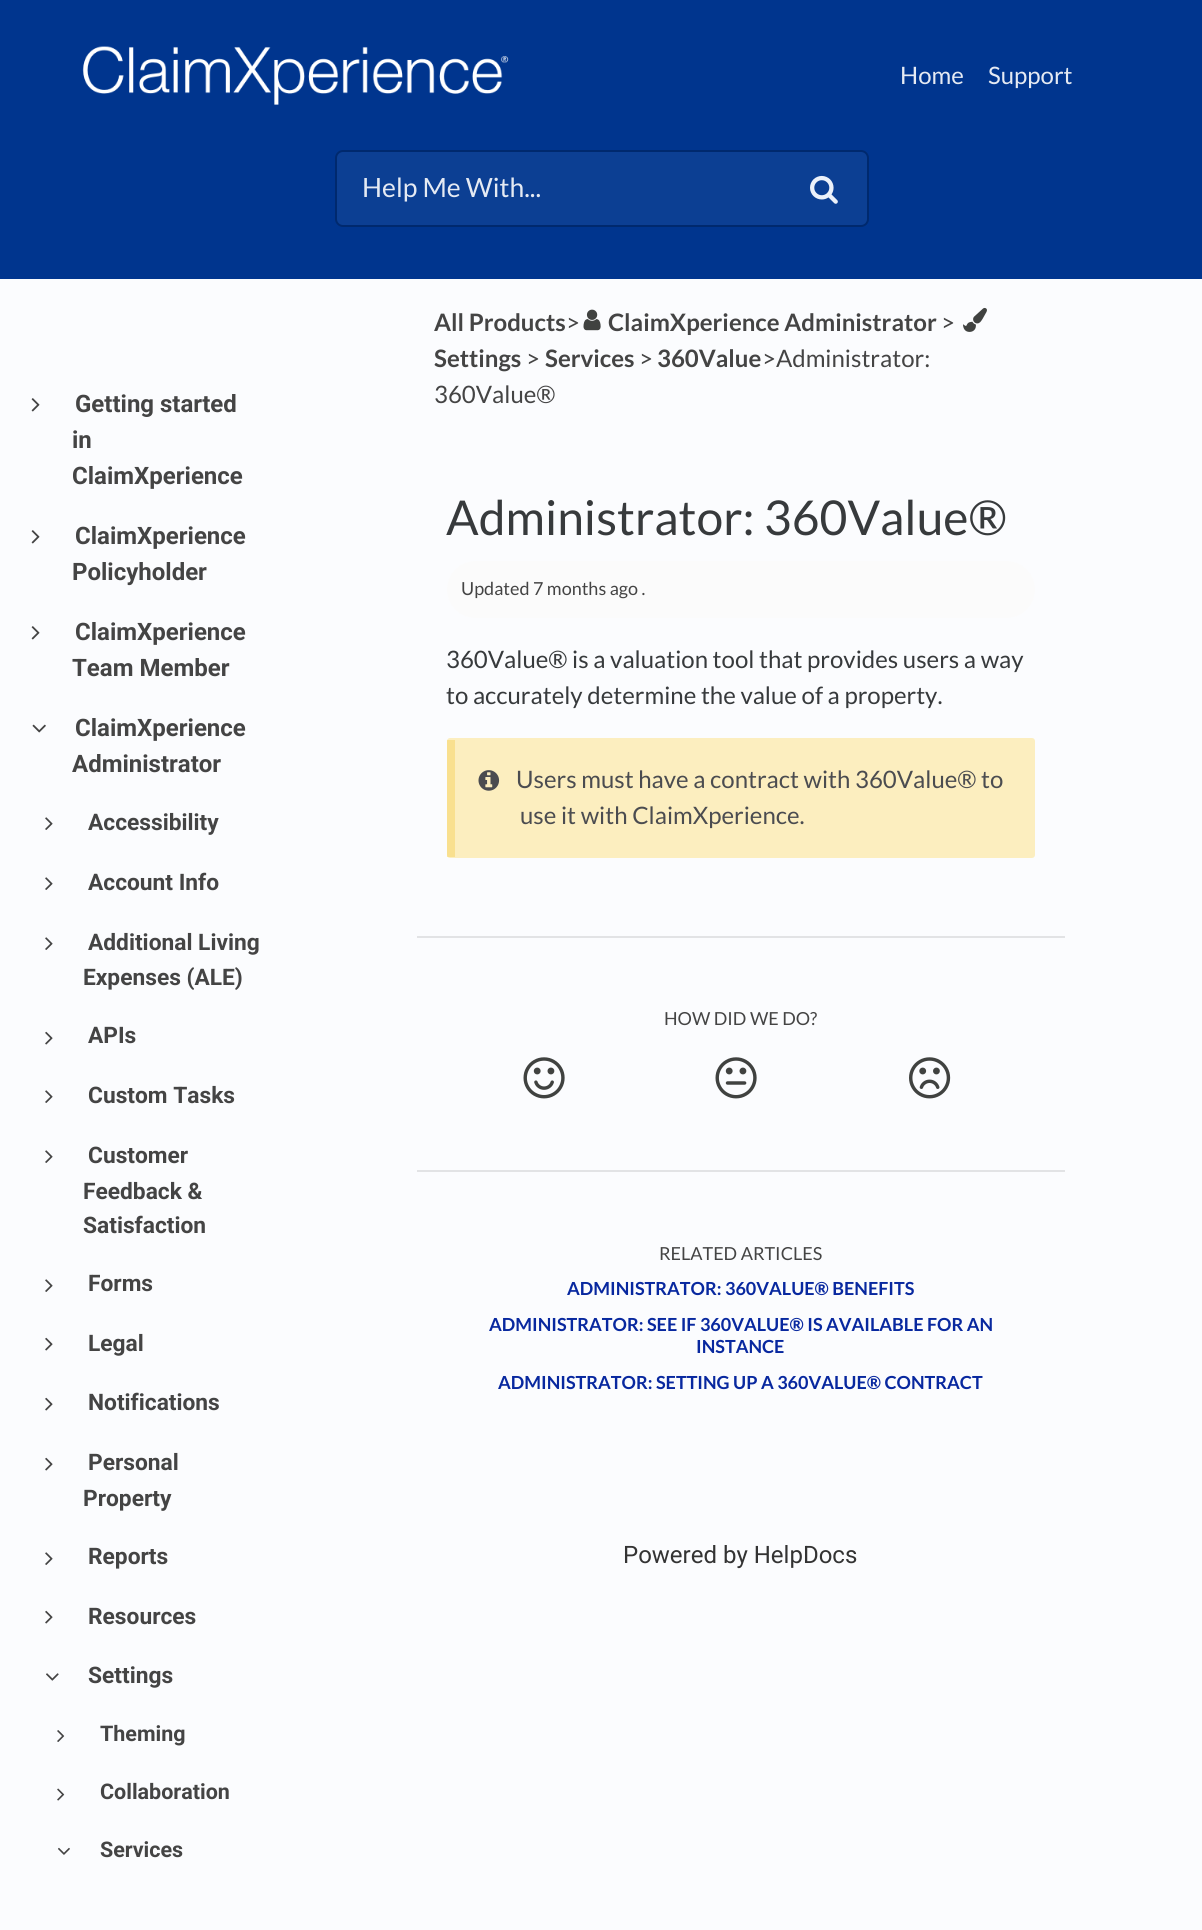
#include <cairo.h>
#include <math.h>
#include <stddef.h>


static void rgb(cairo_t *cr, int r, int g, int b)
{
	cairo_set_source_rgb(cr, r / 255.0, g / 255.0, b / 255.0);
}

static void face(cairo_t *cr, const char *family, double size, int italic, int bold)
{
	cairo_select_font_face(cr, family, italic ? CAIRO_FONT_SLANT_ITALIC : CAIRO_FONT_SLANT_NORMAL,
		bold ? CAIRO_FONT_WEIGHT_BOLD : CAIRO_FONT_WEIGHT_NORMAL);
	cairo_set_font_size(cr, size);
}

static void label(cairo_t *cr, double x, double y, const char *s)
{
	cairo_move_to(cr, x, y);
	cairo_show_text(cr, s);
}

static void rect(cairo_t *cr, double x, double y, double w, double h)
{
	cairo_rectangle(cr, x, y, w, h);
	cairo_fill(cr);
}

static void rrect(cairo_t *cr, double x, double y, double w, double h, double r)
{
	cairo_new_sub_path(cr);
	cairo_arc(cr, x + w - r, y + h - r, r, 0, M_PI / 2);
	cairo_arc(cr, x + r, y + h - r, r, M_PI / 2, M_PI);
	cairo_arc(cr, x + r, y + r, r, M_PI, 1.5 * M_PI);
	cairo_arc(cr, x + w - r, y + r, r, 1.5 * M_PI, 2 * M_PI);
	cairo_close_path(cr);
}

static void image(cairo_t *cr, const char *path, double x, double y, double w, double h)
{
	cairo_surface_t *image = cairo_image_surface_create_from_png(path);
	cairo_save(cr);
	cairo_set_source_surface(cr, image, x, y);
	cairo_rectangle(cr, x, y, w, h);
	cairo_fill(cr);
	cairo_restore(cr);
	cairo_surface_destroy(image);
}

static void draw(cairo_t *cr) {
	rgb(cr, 251, 252, 254);
	cairo_paint(cr);
	rgb(cr, 0, 53, 142);
	rect(cr, 0, 0, 1202, 279);
	image(cr, "image0.png", 82, 46, 427, 59);
	face(cr, "Lato", 24, 0, 0);
	rgb(cr, 229, 234, 243);
	label(cr, 900, 84, "Home");
	label(cr, 988, 84, "Support");
	rgb(cr, 12, 63, 147);
	rrect(cr, 336, 151, 532, 75, 7);
	cairo_fill_preserve(cr);
	rgb(cr, 0, 41, 110);
	cairo_stroke(cr);
	face(cr, "Lato", 26.5, 0, 0);
	rgb(cr, 229, 234, 243);
	label(cr, 362, 197, "Help Me With...");
	image(cr, "image1.png", 810, 175, 28, 29);
	image(cr, "image2.png", 31, 398, 9, 14);
	face(cr, "Roboto", 24, 0, 1);
	rgb(cr, 68, 68, 68);
	label(cr, 75, 412, "Getting started");
	label(cr, 72, 448, "in");
	label(cr, 72, 484, "ClaimXperience");
	image(cr, "image2.png", 31, 530, 9, 14);
	label(cr, 75, 544, "ClaimXperience");
	label(cr, 72, 580, "Policyholder");
	image(cr, "image2.png", 31, 626, 9, 14);
	label(cr, 75, 640, "ClaimXperience");
	label(cr, 72, 676, "Team Member");
	image(cr, "image3.png", 32, 724, 14, 9);
	label(cr, 75, 736, "ClaimXperience");
	label(cr, 72, 772, "Administrator");
	image(cr, "image4.png", 45, 817, 8, 13);
	face(cr, "Roboto", 22.75, 0, 1);
	label(cr, 88, 830, "Accessibility");
	image(cr, "image4.png", 45, 877, 8, 13);
	label(cr, 88, 890, "Account Info");
	image(cr, "image4.png", 45, 937, 8, 13);
	label(cr, 88, 950, "Additional Living");
	label(cr, 83, 985, "Expenses (ALE)");
	image(cr, "image5.png", 45, 1031, 8, 14);
	label(cr, 88, 1043, "APIs");
	image(cr, "image4.png", 45, 1090, 8, 13);
	label(cr, 88, 1103, "Custom Tasks");
	image(cr, "image4.png", 45, 1150, 8, 13);
	label(cr, 88, 1163, "Customer");
	label(cr, 83, 1199, "Feedback &");
	label(cr, 83, 1233, "Satisfaction");
	image(cr, "image4.png", 45, 1279, 8, 13);
	label(cr, 88, 1291, "Forms");
	image(cr, "image5.png", 45, 1337, 8, 14);
	label(cr, 88, 1351, "Legal");
	image(cr, "image5.png", 45, 1397, 8, 14);
	label(cr, 88, 1410, "Notifications");
	image(cr, "image5.png", 45, 1457, 8, 14);
	label(cr, 88, 1470, "Personal");
	label(cr, 83, 1506, "Property");
	image(cr, "image4.png", 45, 1552, 8, 13);
	label(cr, 88, 1564, "Reports");
	image(cr, "image5.png", 45, 1610, 8, 14);
	label(cr, 88, 1624, "Resources");
	image(cr, "image6.png", 46, 1673, 13, 8);
	label(cr, 88, 1683, "Settings");
	image(cr, "image7.png", 57, 1730, 8, 12);
	face(cr, "Roboto", 21.5, 0, 1);
	label(cr, 100, 1741, "Theming");
	image(cr, "image8.png", 57, 1788, 8, 13);
	label(cr, 100, 1799, "Collaboration");
	image(cr, "image9.png", 58, 1847, 12, 8);
	label(cr, 100, 1857, "Services");
	face(cr, "Lato", 24, 0, 1);
	label(cr, 434, 331, "All Products");
	face(cr, "Lato", 24, 0, 0);
	label(cr, 566, 331, ">");
	image(cr, "image10.png", 583, 309, 18, 22);
	face(cr, "Lato", 24, 0, 1);
	label(cr, 608, 331, "ClaimXperience Administrator");
	face(cr, "Lato", 24, 0, 0);
	label(cr, 941, 331, ">");
	image(cr, "image11.png", 963, 307, 24, 25);
	face(cr, "Lato", 24, 0, 1);
	label(cr, 434, 367, "Settings");
	face(cr, "Lato", 24, 0, 0);
	label(cr, 526, 367, ">");
	face(cr, "Lato", 24, 0, 1);
	label(cr, 545, 367, "Services");
	face(cr, "Lato", 24, 0, 0);
	label(cr, 639, 367, ">");
	face(cr, "Lato", 24, 0, 1);
	label(cr, 657, 367, "360Value");
	face(cr, "Lato", 24, 0, 0);
	label(cr, 762, 367, ">Administrator:");
	label(cr, 434, 403, "360Value®");
	face(cr, "Lato", 48, 0, 0);
	rgb(cr, 55, 58, 60);
	label(cr, 446, 535, "Administrator: 360Value®");
	rgb(cr, 251, 251, 251);
	rrect(cr, 447, 561, 588, 57, 28.5);
	cairo_fill(cr);
	face(cr, "Lato", 18, 0, 0);
	rgb(cr, 68, 68, 68);
	label(cr, 461, 595, "Updated 7 months ago .");
	face(cr, "Lato", 24, 0, 0);
	rgb(cr, 55, 58, 60);
	label(cr, 446, 668, "360Value® is a valuation tool that provides users a way");
	label(cr, 446, 704, "to accurately determine the value of a property.");
	rgb(cr, 252, 238, 191);
	rrect(cr, 447, 738, 588, 120, 3);
	cairo_fill(cr);
	cairo_set_source_rgba(cr, 0.949, 0.733, 0, 0.25);
	rect(cr, 447, 740, 8, 117);
	image(cr, "image12.png", 478, 770, 22, 21);
	rgb(cr, 75, 76, 80);
	label(cr, 516, 788, "Users must have a contract with 360Value® to");
	label(cr, 520, 824, "use it with ClaimXperience.");
	rgb(cr, 226, 227, 229);
	rect(cr, 417, 936, 648, 2);
	face(cr, "Lato", 18, 0, 0);
	rgb(cr, 68, 68, 68);
	label(cr, 664, 1025, "HOW DID WE DO?");
	image(cr, "image13.png", 523, 1057, 42, 42);
	image(cr, "image14.png", 715, 1057, 42, 42);
	image(cr, "image15.png", 909, 1057, 42, 42);
	rgb(cr, 226, 227, 229);
	rect(cr, 417, 1170, 648, 2);
	rgb(cr, 68, 68, 68);
	label(cr, 659, 1260, "RELATED ARTICLES");
	face(cr, "Lato", 18, 0, 1);
	rgb(cr, 8, 40, 159);
	label(cr, 567, 1295, "ADMINISTRATOR: 360VALUE® BENEFITS");
	label(cr, 489, 1331, "ADMINISTRATOR: SEE IF 360VALUE® IS AVAILABLE FOR AN");
	label(cr, 696, 1353, "INSTANCE");
	label(cr, 498, 1389, "ADMINISTRATOR: SETTING UP A 360VALUE® CONTRACT");
	face(cr, "Roboto", 24, 0, 0);
	rgb(cr, 51, 51, 51);
	label(cr, 623, 1563, "Powered by HelpDocs");
}

int main(void) {
	cairo_surface_t *surface = cairo_image_surface_create(CAIRO_FORMAT_RGB24, 1202, 1930);
	cairo_t *cr = cairo_create(surface);
	cairo_font_options_t *options = cairo_font_options_create();
	cairo_font_options_set_hint_metrics(options, CAIRO_HINT_METRICS_OFF);
	cairo_font_options_set_hint_style(options, CAIRO_HINT_STYLE_NONE);
	cairo_set_font_options(cr, options);
	cairo_set_miter_limit(cr, 4);
	draw(cr);
	cairo_surface_write_to_png(surface, "render.png");
	cairo_font_options_destroy(options);
	cairo_destroy(cr);
	cairo_surface_destroy(surface);
	return 0;
}
